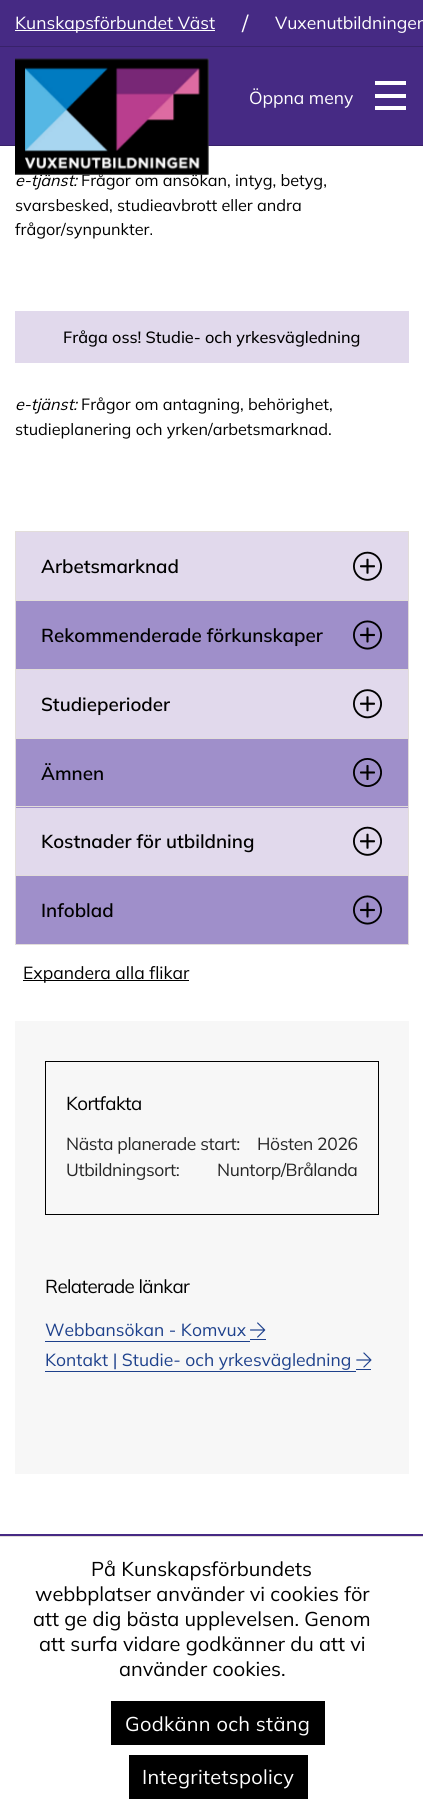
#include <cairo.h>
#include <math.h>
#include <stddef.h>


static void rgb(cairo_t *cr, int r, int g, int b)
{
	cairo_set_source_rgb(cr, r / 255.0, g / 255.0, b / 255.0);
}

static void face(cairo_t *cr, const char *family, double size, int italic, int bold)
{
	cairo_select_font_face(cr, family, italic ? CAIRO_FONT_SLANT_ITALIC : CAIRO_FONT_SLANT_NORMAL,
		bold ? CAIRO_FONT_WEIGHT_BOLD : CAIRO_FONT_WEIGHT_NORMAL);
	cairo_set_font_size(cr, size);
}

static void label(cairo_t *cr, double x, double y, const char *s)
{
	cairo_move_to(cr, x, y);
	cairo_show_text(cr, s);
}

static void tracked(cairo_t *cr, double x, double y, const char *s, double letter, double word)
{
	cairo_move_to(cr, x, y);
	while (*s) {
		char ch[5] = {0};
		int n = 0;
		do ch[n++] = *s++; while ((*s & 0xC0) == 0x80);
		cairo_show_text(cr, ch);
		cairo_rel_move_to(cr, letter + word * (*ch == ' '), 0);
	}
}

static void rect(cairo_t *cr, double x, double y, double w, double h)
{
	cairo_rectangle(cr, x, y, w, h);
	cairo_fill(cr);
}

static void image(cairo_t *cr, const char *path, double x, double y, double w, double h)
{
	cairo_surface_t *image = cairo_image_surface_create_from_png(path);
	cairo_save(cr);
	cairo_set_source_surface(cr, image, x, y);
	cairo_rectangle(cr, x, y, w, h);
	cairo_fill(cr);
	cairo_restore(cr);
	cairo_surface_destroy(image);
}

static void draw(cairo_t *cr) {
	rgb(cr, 255, 255, 255);
	cairo_paint(cr);
	rgb(cr, 70, 42, 132);
	rect(cr, 0, 0, 423, 145);
	rgb(cr, 56, 34, 106);
	rect(cr, 0, 145, 423, 1);
	rect(cr, 0, 46, 423, 1);
	rgb(cr, 255, 255, 255);
	rect(cr, 15, 30, 200, 1);
	face(cr, "Mulish", 17.5, 0, 0);
	label(cr, 15, 29, "Kunskapsförbundet Väst");
	face(cr, "Mulish", 22, 0, 0);
	label(cr, 242, 31, "/");
	face(cr, "Mulish", 17.5, 0, 0);
	label(cr, 275, 29, "Vuxenutbildningen");
	face(cr, "Mulish", 16.25, 1, 0);
	rgb(cr, 0, 0, 0);
	label(cr, 15, 186, "e-tjänst:");
	face(cr, "Mulish", 16.25, 0, 0);
	label(cr, 81, 186, "Frågor om ansökan, intyg, betyg,");
	image(cr, "image0.png", 15, 58, 194, 117);
	rgb(cr, 255, 255, 255);
	rect(cr, 375, 81, 31, 4);
	face(cr, "Mulish", 17.5, 0, 0);
	label(cr, 249, 104, "Öppna meny");
	rect(cr, 375, 94, 31, 4);
	rect(cr, 375, 106, 31, 4);
	face(cr, "Mulish", 16.25, 0, 0);
	rgb(cr, 0, 0, 0);
	label(cr, 15, 211, "svarsbesked, studieavbrott eller andra");
	label(cr, 15, 235, "frågor/synpunkter.");
	rgb(cr, 225, 217, 236);
	rect(cr, 15, 311, 394, 52);
	face(cr, "Mulish Medium", 16.25, 0, 0);
	rgb(cr, 0, 0, 0);
	label(cr, 63, 343, "Fråga oss! Studie- och yrkesvägledning");
	face(cr, "Mulish", 16.25, 1, 0);
	label(cr, 15, 410, "e-tjänst:");
	face(cr, "Mulish", 16.25, 0, 0);
	label(cr, 81, 410, "Frågor om antagning, behörighet,");
	label(cr, 15, 435, "studieplanering och yrken/arbetsmarknad.");
	rgb(cr, 225, 217, 236);
	cairo_rectangle(cr, 15.5, 531.5, 393, 69);
	cairo_fill_preserve(cr);
	rgb(cr, 226, 221, 218);
	cairo_set_line_width(cr, 1);
	cairo_stroke(cr);
	face(cr, "Mulish SemiBold", 18.75, 0, 0);
	rgb(cr, 0, 0, 0);
	label(cr, 41, 573, "Arbetsmarknad");
	image(cr, "image1.png", 353, 551, 29, 30);
	rgb(cr, 159, 143, 202);
	rect(cr, 16, 601, 392, 68);
	rgb(cr, 226, 221, 218);
	rect(cr, 408, 601, 1, 344);
	rect(cr, 15, 669, 394, 1);
	rect(cr, 15, 601, 1, 69);
	rgb(cr, 0, 0, 0);
	label(cr, 41, 642, "Rekommenderade förkunskaper");
	image(cr, "image2.png", 353, 620, 29, 30);
	rgb(cr, 225, 217, 236);
	rect(cr, 16, 670, 392, 68);
	rgb(cr, 226, 221, 218);
	rect(cr, 15, 738, 394, 1);
	rect(cr, 15, 670, 1, 69);
	rgb(cr, 0, 0, 0);
	label(cr, 41, 711, "Studieperioder");
	image(cr, "image3.png", 353, 689, 29, 30);
	rgb(cr, 159, 143, 202);
	rect(cr, 16, 739, 392, 69);
	rgb(cr, 226, 221, 218);
	rect(cr, 15, 806, 394, 1);
	rect(cr, 15, 739, 1, 69);
	rgb(cr, 0, 0, 0);
	label(cr, 41, 780, "Ämnen");
	image(cr, "image4.png", 353, 758, 29, 29);
	rgb(cr, 225, 217, 236);
	rect(cr, 16, 808, 392, 67);
	rgb(cr, 226, 221, 218);
	rect(cr, 15, 875, 394, 1);
	rect(cr, 15, 808, 1, 68);
	rgb(cr, 0, 0, 0);
	label(cr, 41, 848, "Kostnader för utbildning");
	image(cr, "image1.png", 353, 826, 29, 30);
	rgb(cr, 159, 143, 202);
	rect(cr, 16, 876, 392, 68);
	rgb(cr, 226, 221, 218);
	rect(cr, 15, 944, 394, 1);
	rect(cr, 15, 876, 1, 69);
	rgb(cr, 0, 0, 0);
	label(cr, 41, 917, "Infoblad");
	image(cr, "image2.png", 353, 895, 29, 30);
	rect(cr, 23, 980, 166, 1);
	face(cr, "Mulish", 17.5, 0, 0);
	label(cr, 23, 979, "Expandera alla flikar");
	rgb(cr, 247, 247, 247);
	rect(cr, 15, 1021, 394, 453);
	cairo_rectangle(cr, 45.5, 1061.5, 333, 153);
	rgb(cr, 0, 0, 0);
	cairo_stroke(cr);
	face(cr, "Mulish", 18.75, 0, 0);
	tracked(cr, 66, 1110, "Kortfakta", -0.6, 0);
	face(cr, "Mulish", 17.5, 0, 0);
	rgb(cr, 38, 38, 38);
	tracked(cr, 66, 1150, "Nästa planerade start:", -0.35, 0);
	tracked(cr, 257, 1150, "Hösten 2026", -0.35, 0);
	tracked(cr, 66, 1176, "Utbildningsort:", -0.35, 0);
	tracked(cr, 217, 1176, "Nuntorp/Brålanda", -0.35, 0);
	face(cr, "Mulish", 18.75, 0, 0);
	rgb(cr, 0, 0, 0);
	tracked(cr, 45, 1293, "Relaterade länkar", -0.6, 0);
	rgb(cr, 30, 65, 140);
	rect(cr, 45, 1341, 205, 1);
	rect(cr, 250, 1339, 16, 1);
	face(cr, "Mulish", 17.5, 0, 0);
	label(cr, 45, 1336, "Webbansökan - Komvux");
	image(cr, "image5.png", 250, 1322, 16, 16);
	rect(cr, 45, 1371, 311, 1);
	rect(cr, 356, 1369, 15, 1);
	label(cr, 45, 1366, "Kontakt | Studie- och yrkesvägledning");
	image(cr, "image6.png", 356, 1352, 16, 16);
	rgb(cr, 70, 42, 132);
	rect(cr, 0, 1534, 423, 2);
	rgb(cr, 226, 221, 218);
	rect(cr, 0, 1536, 423, 1);
	face(cr, "Mulish", 20, 0, 0);
	rgb(cr, 0, 0, 0);
	label(cr, 91, 1576, "På Kunskapsförbundets");
	label(cr, 35, 1601, "webbplatser använder vi cookies för");
	label(cr, 33, 1626, "att ge dig bästa upplevelsen. Genom");
	label(cr, 39, 1651, "att surfa vidare godkänner du att vi");
	label(cr, 119, 1676, "använder cookies.");
	rect(cr, 111, 1701, 214, 44);
	rgb(cr, 255, 255, 255);
	tracked(cr, 125, 1731, "Godkänn och stäng", 0.3, 0);
	rgb(cr, 0, 0, 0);
	rect(cr, 129, 1755, 179, 44);
	rgb(cr, 255, 255, 255);
	tracked(cr, 142, 1784, "Integritetspolicy", 0.3, 0);
}

int main(void) {
	cairo_surface_t *surface = cairo_image_surface_create(CAIRO_FORMAT_RGB24, 423, 1817);
	cairo_t *cr = cairo_create(surface);
	cairo_font_options_t *options = cairo_font_options_create();
	cairo_font_options_set_hint_metrics(options, CAIRO_HINT_METRICS_OFF);
	cairo_font_options_set_hint_style(options, CAIRO_HINT_STYLE_NONE);
	cairo_set_font_options(cr, options);
	cairo_set_miter_limit(cr, 4);
	draw(cr);
	cairo_surface_write_to_png(surface, "render.png");
	cairo_font_options_destroy(options);
	cairo_destroy(cr);
	cairo_surface_destroy(surface);
	return 0;
}
